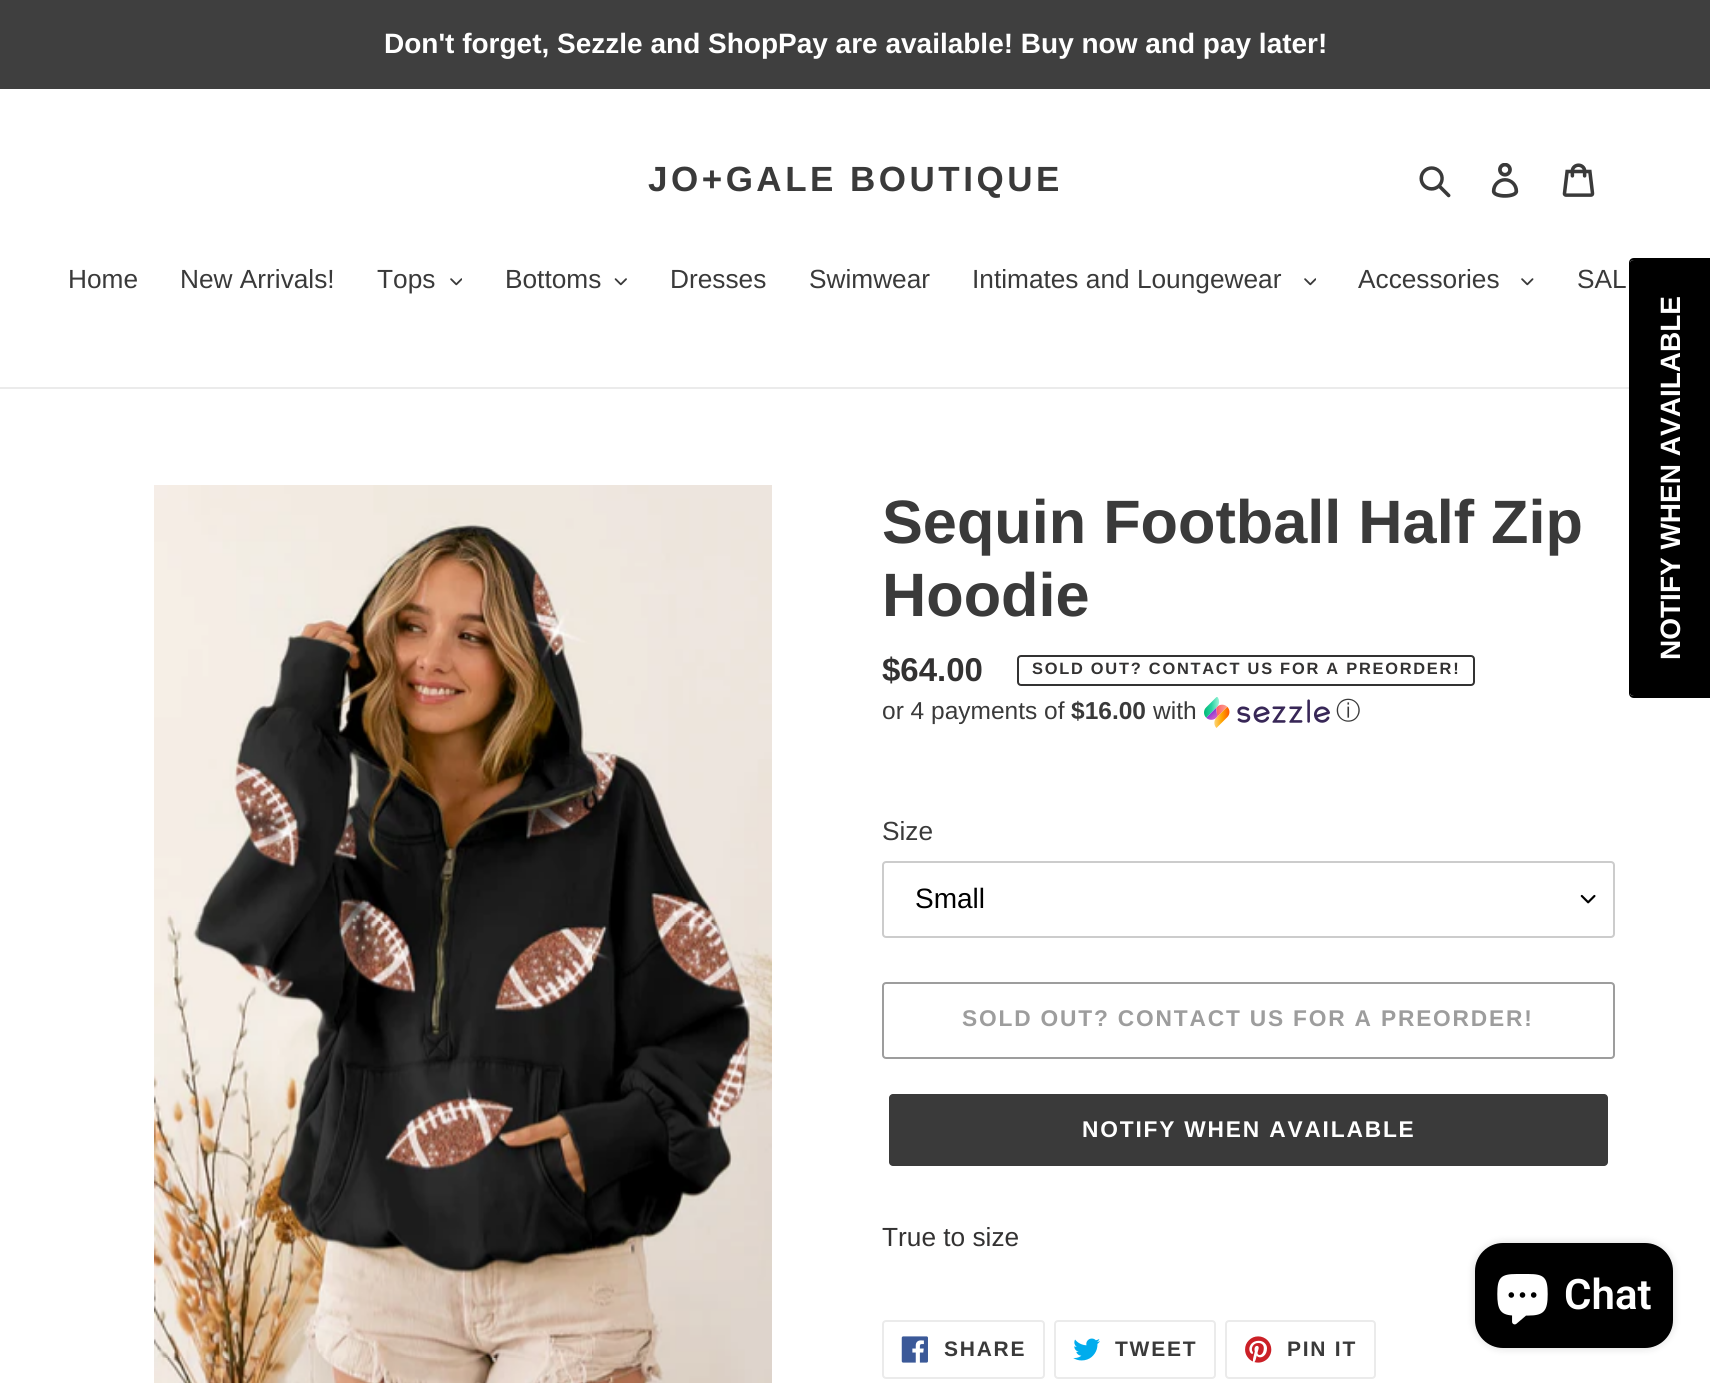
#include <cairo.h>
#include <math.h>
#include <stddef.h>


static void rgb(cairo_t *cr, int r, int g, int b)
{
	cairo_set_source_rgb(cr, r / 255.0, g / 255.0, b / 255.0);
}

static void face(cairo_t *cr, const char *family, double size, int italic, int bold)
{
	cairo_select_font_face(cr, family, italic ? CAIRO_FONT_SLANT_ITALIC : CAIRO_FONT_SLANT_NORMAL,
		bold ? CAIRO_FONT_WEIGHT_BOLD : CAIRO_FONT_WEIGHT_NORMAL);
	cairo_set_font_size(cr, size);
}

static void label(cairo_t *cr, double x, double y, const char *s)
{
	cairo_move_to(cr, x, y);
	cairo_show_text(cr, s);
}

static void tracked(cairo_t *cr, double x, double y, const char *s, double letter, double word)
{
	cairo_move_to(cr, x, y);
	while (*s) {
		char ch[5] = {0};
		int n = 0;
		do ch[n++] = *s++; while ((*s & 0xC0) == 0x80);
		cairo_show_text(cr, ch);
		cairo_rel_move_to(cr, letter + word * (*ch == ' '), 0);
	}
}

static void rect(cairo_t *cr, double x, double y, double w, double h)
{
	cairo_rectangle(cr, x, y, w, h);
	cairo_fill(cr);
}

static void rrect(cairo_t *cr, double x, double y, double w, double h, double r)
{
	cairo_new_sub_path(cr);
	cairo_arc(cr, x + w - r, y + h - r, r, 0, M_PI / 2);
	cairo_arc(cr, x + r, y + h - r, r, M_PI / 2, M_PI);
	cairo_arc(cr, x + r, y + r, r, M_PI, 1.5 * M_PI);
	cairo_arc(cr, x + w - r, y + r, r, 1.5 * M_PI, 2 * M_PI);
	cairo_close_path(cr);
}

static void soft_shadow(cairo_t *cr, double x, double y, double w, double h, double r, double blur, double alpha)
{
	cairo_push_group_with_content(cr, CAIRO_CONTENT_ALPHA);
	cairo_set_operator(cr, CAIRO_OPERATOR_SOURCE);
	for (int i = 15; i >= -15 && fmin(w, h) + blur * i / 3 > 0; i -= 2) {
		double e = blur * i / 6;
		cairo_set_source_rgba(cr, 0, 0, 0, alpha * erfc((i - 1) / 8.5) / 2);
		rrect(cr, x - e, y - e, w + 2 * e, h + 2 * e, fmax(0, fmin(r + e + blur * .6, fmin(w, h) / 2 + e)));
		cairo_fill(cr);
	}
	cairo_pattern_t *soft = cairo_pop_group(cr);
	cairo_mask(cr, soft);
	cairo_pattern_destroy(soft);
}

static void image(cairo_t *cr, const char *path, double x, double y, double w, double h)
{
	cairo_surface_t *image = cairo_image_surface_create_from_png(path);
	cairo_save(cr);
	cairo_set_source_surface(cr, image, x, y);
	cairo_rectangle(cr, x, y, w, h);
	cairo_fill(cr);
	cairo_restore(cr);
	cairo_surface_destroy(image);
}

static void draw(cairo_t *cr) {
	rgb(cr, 255, 255, 255);
	cairo_paint(cr);
	rgb(cr, 63, 63, 63);
	rect(cr, 0, 0, 1710, 89);
	face(cr, "Liberation Sans", 28, 0, 1);
	rgb(cr, 255, 255, 255);
	label(cr, 384, 53, "Don't forget, Sezzle and ShopPay are available! Buy now and pay later!");
	face(cr, "Liberation Sans", 35, 0, 1);
	rgb(cr, 58, 58, 58);
	tracked(cr, 648, 191, "JO+GALE BOUTIQUE", 3.5, 0);
	image(cr, "image0.png", 1419, 166, 32, 32);
	image(cr, "image1.png", 1491, 163, 28, 35);
	image(cr, "image2.png", 1562, 163, 33, 34);
	rgb(cr, 235, 235, 235);
	rect(cr, 0, 387, 1629, 2);
	face(cr, "Liberation Sans", 26.25, 0, 0);
	rgb(cr, 58, 58, 58);
	label(cr, 68, 288, "Home");
	label(cr, 180, 288, "New Arrivals!");
	label(cr, 377, 288, "Tops");
	image(cr, "image3.png", 450, 278, 12, 8);
	label(cr, 505, 288, "Bottoms");
	image(cr, "image4.png", 614, 278, 13, 8);
	label(cr, 670, 288, "Dresses");
	label(cr, 809, 288, "Swimwear");
	label(cr, 972, 288, "Intimates and Loungewear");
	image(cr, "image3.png", 1304, 278, 12, 8);
	label(cr, 1358, 288, "Accessories");
	image(cr, "image5.png", 1521, 278, 13, 8);
	label(cr, 1577, 288, "SAL");
	image(cr, "image6.png", 154, 485, 618, 898);
	face(cr, "Liberation Sans", 61.25, 0, 1);
	label(cr, 882, 543, "Sequin Football Half Zip");
	label(cr, 882, 616, "Hoodie");
	face(cr, "Liberation Sans", 33, 0, 1);
	rgb(cr, 51, 50, 50);
	label(cr, 882, 681, "$64.00");
	rrect(cr, 1018, 656, 456, 29, 3);
	cairo_stroke(cr);
	face(cr, "Liberation Sans", 16.4, 0, 1);
	tracked(cr, 1032, 674, "SOLD OUT? CONTACT US FOR A PREORDER!", 1.75, 0);
	face(cr, "Liberation Sans", 24.5, 0, 0);
	rgb(cr, 58, 58, 58);
	label(cr, 882, 719, "or 4 payments of");
	face(cr, "Liberation Sans", 24.5, 0, 1);
	label(cr, 1071, 719, "$16.00");
	face(cr, "Liberation Sans", 24.5, 0, 0);
	label(cr, 1153, 719, "with");
	image(cr, "image7.png", 1204, 697, 126, 31);
	face(cr, "WenQuanYi Zen Hei Medium", 24.5, 0, 0);
	label(cr, 1336, 719, "ⓘ");
	face(cr, "Liberation Sans", 26.25, 0, 0);
	label(cr, 882, 840, "Size");
	image(cr, "image8.png", 1580, 894, 16, 10);
	rrect(cr, 883, 862, 731, 75, 3);
	rgb(cr, 204, 204, 204);
	cairo_stroke(cr);
	face(cr, "Liberation Sans", 28, 0, 0);
	rgb(cr, 0, 0, 0);
	label(cr, 915, 908, "Small");
	rrect(cr, 883, 983, 731, 75, 3);
	rgb(cr, 157, 157, 157);
	cairo_stroke(cr);
	face(cr, "Liberation Sans", 22.75, 0, 1);
	tracked(cr, 962, 1026, "SOLD OUT? CONTACT US FOR A PREORDER!", 1.8, 0);
	rgb(cr, 58, 58, 58);
	rrect(cr, 889, 1094, 719, 72, 4);
	cairo_fill(cr);
	rgb(cr, 255, 255, 255);
	tracked(cr, 1082, 1137, "NOTIFY WHEN AVAILABLE", 1.8, 0);
	face(cr, "Liberation Sans", 26.25, 0, 0);
	rgb(cr, 51, 50, 50);
	label(cr, 882, 1246, "True to size");
	rrect(cr, 883, 1321, 161, 57, 3);
	rgb(cr, 235, 235, 235);
	cairo_stroke(cr);
	image(cr, "image9.png", 901, 1336, 27, 27);
	face(cr, "Liberation Sans", 21, 0, 1);
	rgb(cr, 58, 58, 58);
	tracked(cr, 944, 1356, "SHARE", 1.75, 0);
	rrect(cr, 1055, 1321, 160, 57, 3);
	rgb(cr, 235, 235, 235);
	cairo_stroke(cr);
	image(cr, "image10.png", 1073, 1338, 27, 23);
	rgb(cr, 58, 58, 58);
	tracked(cr, 1115, 1356, "TWEET", 1.75, 0);
	rrect(cr, 1226, 1321, 149, 57, 3);
	rgb(cr, 235, 235, 235);
	cairo_stroke(cr);
	image(cr, "image11.png", 1245, 1336, 27, 27);
	rgb(cr, 58, 58, 58);
	tracked(cr, 1287, 1356, "PIN IT", 1.75, 0);
	rgb(cr, 0, 0, 0);
	soft_shadow(cr, 1475, 1243, 198, 105, 28, 4.5, 0.15);
	rgb(cr, 0, 0, 0);
	rrect(cr, 1475, 1243, 198, 105, 28);
	cairo_fill(cr);
	image(cr, "image12.png", 1497, 1274, 51, 51);
	face(cr, "Roboto SemiBold", 42, 0, 0);
	rgb(cr, 255, 255, 255);
	label(cr, 1564, 1309, "Chat");
	rgb(cr, 0, 0, 0);
	cairo_new_path(cr);
	cairo_move_to(cr, 1630, 693);
	cairo_line_to(cr, 1630, 263);
	cairo_curve_to(cr, 1630, 261, 1632, 260, 1634, 260);
	cairo_line_to(cr, 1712, 260);
	cairo_line_to(cr, 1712, 696);
	cairo_line_to(cr, 1634, 696);
	cairo_curve_to(cr, 1632, 696, 1630, 695, 1630, 693);
	cairo_close_path(cr);
	cairo_fill(cr);
	cairo_set_fill_rule(cr, CAIRO_FILL_RULE_EVEN_ODD);
	cairo_new_path(cr);
	cairo_move_to(cr, 1629, 693);
	cairo_line_to(cr, 1629, 263);
	cairo_curve_to(cr, 1629, 260, 1631, 258, 1634, 258);
	cairo_line_to(cr, 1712, 258);
	cairo_line_to(cr, 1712, 698);
	cairo_line_to(cr, 1634, 698);
	cairo_curve_to(cr, 1631, 698, 1629, 696, 1629, 693);
	cairo_close_path(cr);
	cairo_move_to(cr, 1630, 693);
	cairo_line_to(cr, 1630, 263);
	cairo_curve_to(cr, 1630, 261, 1632, 260, 1634, 260);
	cairo_line_to(cr, 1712, 260);
	cairo_line_to(cr, 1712, 696);
	cairo_line_to(cr, 1634, 696);
	cairo_curve_to(cr, 1632, 696, 1630, 695, 1630, 693);
	cairo_close_path(cr);
	cairo_fill(cr);
	face(cr, "Liberation Sans", 28, 0, 1);
	rgb(cr, 255, 255, 255);
	cairo_save(cr);
	cairo_translate(cr, 1680, 660);
	cairo_rotate(cr, -90 * M_PI / 180);
	label(cr, 0, 0, "NOTIFY WHEN AVAILABLE");
	cairo_restore(cr);
}

int main(void) {
	cairo_surface_t *surface = cairo_image_surface_create(CAIRO_FORMAT_RGB24, 1710, 1383);
	cairo_t *cr = cairo_create(surface);
	cairo_font_options_t *options = cairo_font_options_create();
	cairo_font_options_set_hint_metrics(options, CAIRO_HINT_METRICS_OFF);
	cairo_font_options_set_hint_style(options, CAIRO_HINT_STYLE_NONE);
	cairo_set_font_options(cr, options);
	cairo_set_miter_limit(cr, 4);
	draw(cr);
	cairo_surface_write_to_png(surface, "render.png");
	cairo_font_options_destroy(options);
	cairo_destroy(cr);
	cairo_surface_destroy(surface);
	return 0;
}
